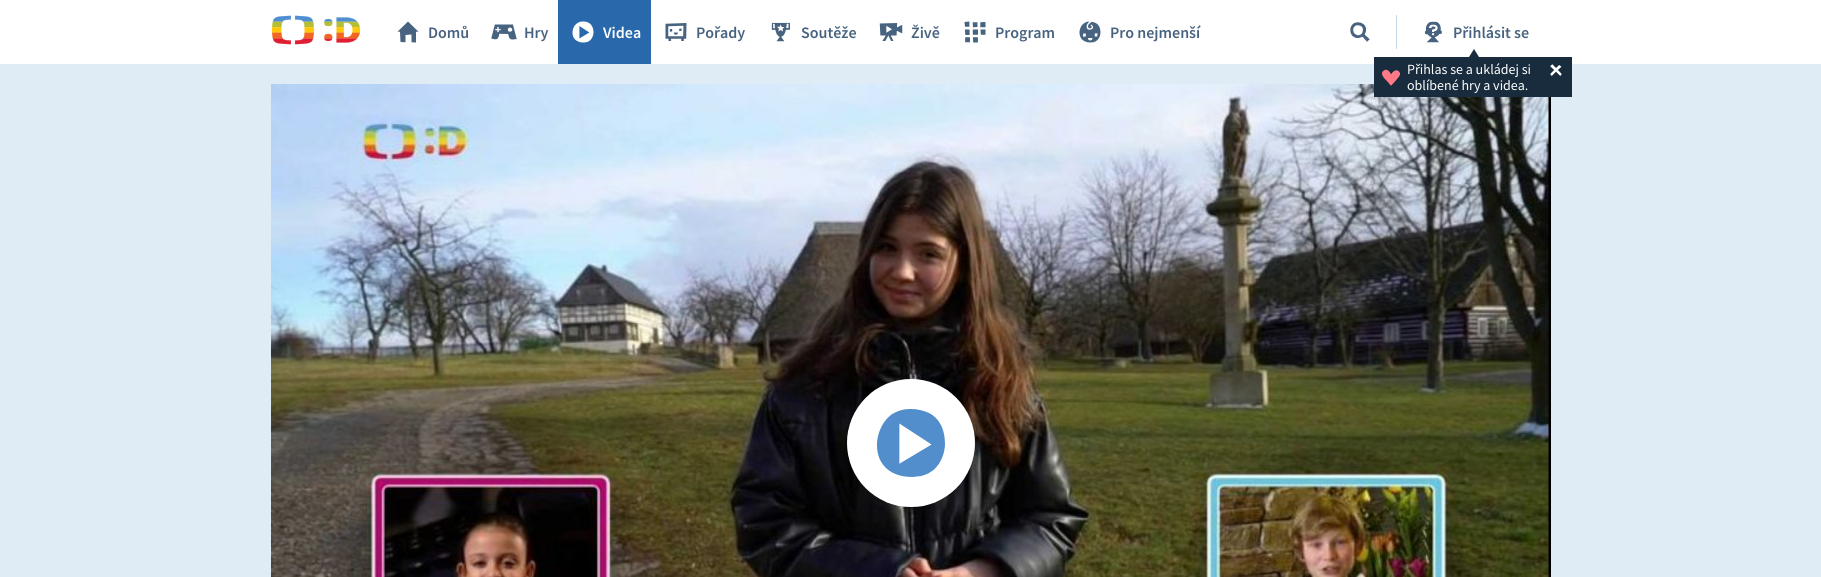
#include <cairo.h>
#include <math.h>
#include <stddef.h>


static void rgb(cairo_t *cr, int r, int g, int b)
{
	cairo_set_source_rgb(cr, r / 255.0, g / 255.0, b / 255.0);
}

static void face(cairo_t *cr, const char *family, double size, int italic, int bold)
{
	cairo_select_font_face(cr, family, italic ? CAIRO_FONT_SLANT_ITALIC : CAIRO_FONT_SLANT_NORMAL,
		bold ? CAIRO_FONT_WEIGHT_BOLD : CAIRO_FONT_WEIGHT_NORMAL);
	cairo_set_font_size(cr, size);
}

static void label(cairo_t *cr, double x, double y, const char *s)
{
	cairo_move_to(cr, x, y);
	cairo_show_text(cr, s);
}

static void rect(cairo_t *cr, double x, double y, double w, double h)
{
	cairo_rectangle(cr, x, y, w, h);
	cairo_fill(cr);
}

static void image(cairo_t *cr, const char *path, double x, double y, double w, double h)
{
	cairo_surface_t *image = cairo_image_surface_create_from_png(path);
	cairo_save(cr);
	cairo_set_source_surface(cr, image, x, y);
	cairo_rectangle(cr, x, y, w, h);
	cairo_fill(cr);
	cairo_restore(cr);
	cairo_surface_destroy(image);
}

static void draw(cairo_t *cr) {
	rgb(cr, 224, 236, 245);
	cairo_paint(cr);
	rgb(cr, 255, 255, 255);
	rect(cr, 0, 0, 1821, 64);
	image(cr, "image0.png", 271, 15, 90, 30);
	image(cr, "image1.png", 397, 21, 22, 22);
	face(cr, "Source Sans Pro SemiBold", 16, 0, 0);
	rgb(cr, 72, 99, 128);
	label(cr, 428, 38, "Domů");
	image(cr, "image2.png", 491, 24, 26, 16);
	label(cr, 524, 38, "Hry");
	rgb(cr, 41, 105, 171);
	rect(cr, 558, 0, 93, 64);
	image(cr, "image3.png", 572, 21, 22, 22);
	rgb(cr, 255, 255, 255);
	label(cr, 603, 38, "Videa");
	image(cr, "image4.png", 665, 23, 22, 18);
	rgb(cr, 72, 99, 128);
	label(cr, 696, 38, "Pořady");
	image(cr, "image5.png", 771, 22, 19, 20);
	label(cr, 801, 38, "Soutěže");
	image(cr, "image6.png", 879, 23, 24, 18);
	label(cr, 911, 38, "Živě");
	image(cr, "image7.png", 964, 21, 22, 22);
	label(cr, 995, 38, "Program");
	image(cr, "image8.png", 1079, 21, 22, 22);
	label(cr, 1110, 38, "Pro nejmenší");
	image(cr, "image9.png", 1350, 22, 20, 20);
	rgb(cr, 195, 215, 230);
	rect(cr, 1396, 15, 1, 34);
	image(cr, "image10.png", 1424, 21, 18, 22);
	rgb(cr, 72, 99, 128);
	label(cr, 1453, 38, "Přihlásit se");
	image(cr, "image13.png", 271, 84, 1280, 493);
	rgb(cr, 25, 44, 61);
	rect(cr, 1374, 57, 198, 40);
	cairo_new_path(cr);
	cairo_move_to(cr, 1479, 57);
	cairo_line_to(cr, 1469, 57);
	cairo_line_to(cr, 1474, 49);
	cairo_close_path(cr);
	cairo_fill(cr);
	image(cr, "image11.png", 1382, 69, 19, 17);
	face(cr, "Source Sans Pro", 14, 0, 0);
	rgb(cr, 255, 255, 255);
	label(cr, 1407, 74, "Přihlas se a ukládej si");
	label(cr, 1407, 90, "oblíbené hry a videa.");
	image(cr, "image12.png", 1550, 64, 12, 12);
	image(cr, "image14.png", 847, 379, 128, 128);
}

int main(void) {
	cairo_surface_t *surface = cairo_image_surface_create(CAIRO_FORMAT_RGB24, 1821, 577);
	cairo_t *cr = cairo_create(surface);
	cairo_font_options_t *options = cairo_font_options_create();
	cairo_font_options_set_hint_metrics(options, CAIRO_HINT_METRICS_OFF);
	cairo_font_options_set_hint_style(options, CAIRO_HINT_STYLE_NONE);
	cairo_set_font_options(cr, options);
	cairo_set_miter_limit(cr, 4);
	draw(cr);
	cairo_surface_write_to_png(surface, "render.png");
	cairo_font_options_destroy(options);
	cairo_destroy(cr);
	cairo_surface_destroy(surface);
	return 0;
}
